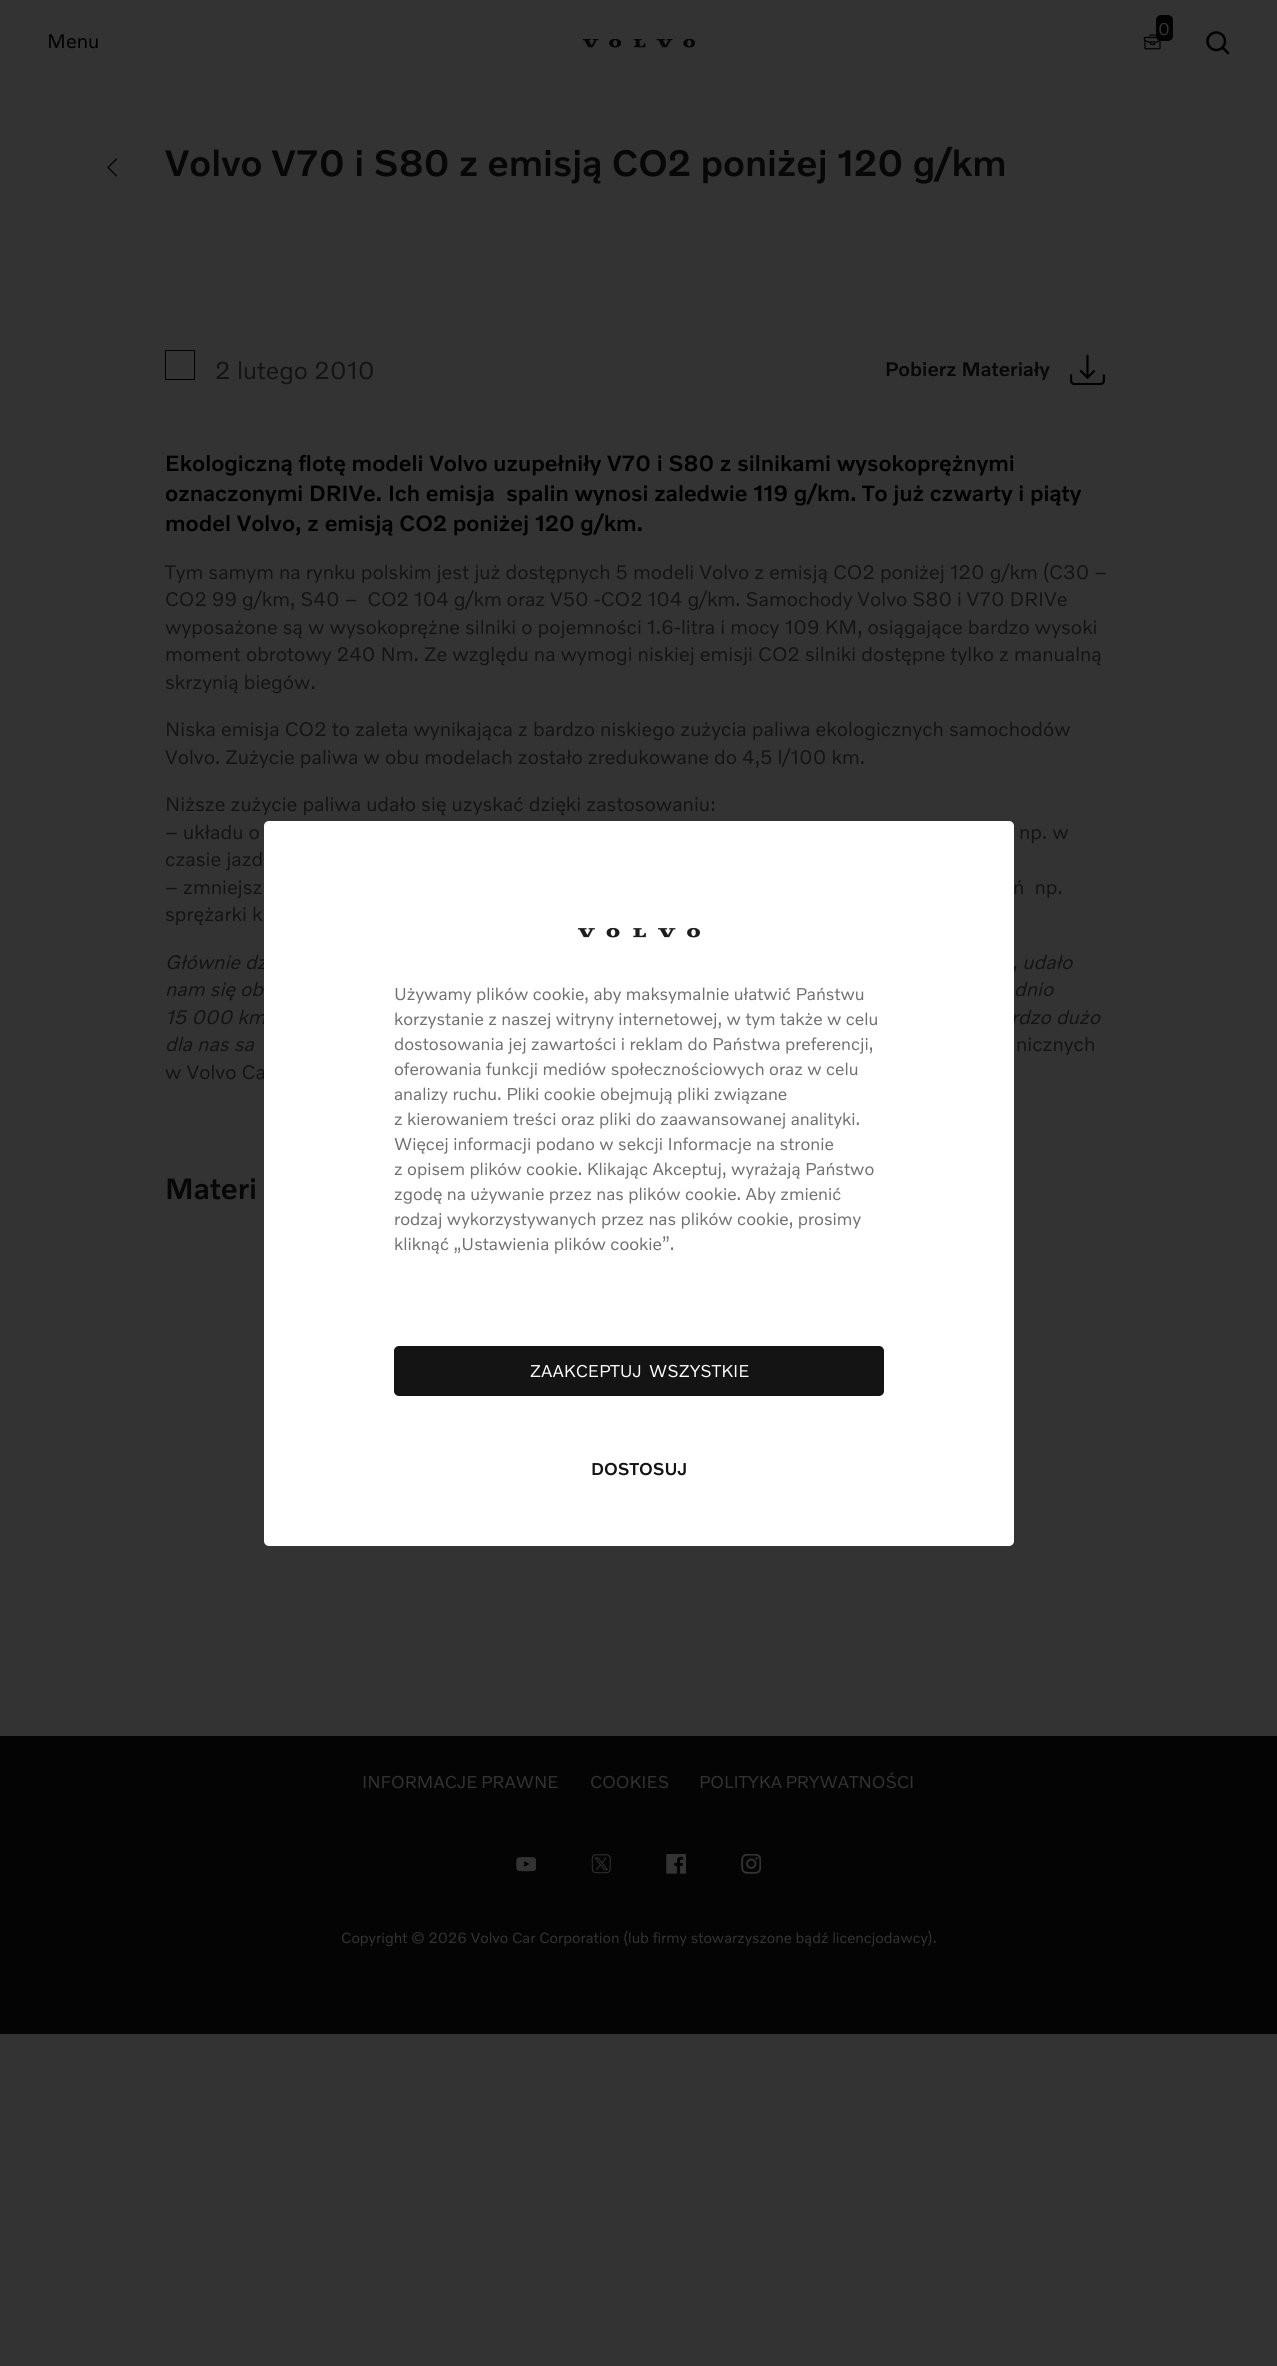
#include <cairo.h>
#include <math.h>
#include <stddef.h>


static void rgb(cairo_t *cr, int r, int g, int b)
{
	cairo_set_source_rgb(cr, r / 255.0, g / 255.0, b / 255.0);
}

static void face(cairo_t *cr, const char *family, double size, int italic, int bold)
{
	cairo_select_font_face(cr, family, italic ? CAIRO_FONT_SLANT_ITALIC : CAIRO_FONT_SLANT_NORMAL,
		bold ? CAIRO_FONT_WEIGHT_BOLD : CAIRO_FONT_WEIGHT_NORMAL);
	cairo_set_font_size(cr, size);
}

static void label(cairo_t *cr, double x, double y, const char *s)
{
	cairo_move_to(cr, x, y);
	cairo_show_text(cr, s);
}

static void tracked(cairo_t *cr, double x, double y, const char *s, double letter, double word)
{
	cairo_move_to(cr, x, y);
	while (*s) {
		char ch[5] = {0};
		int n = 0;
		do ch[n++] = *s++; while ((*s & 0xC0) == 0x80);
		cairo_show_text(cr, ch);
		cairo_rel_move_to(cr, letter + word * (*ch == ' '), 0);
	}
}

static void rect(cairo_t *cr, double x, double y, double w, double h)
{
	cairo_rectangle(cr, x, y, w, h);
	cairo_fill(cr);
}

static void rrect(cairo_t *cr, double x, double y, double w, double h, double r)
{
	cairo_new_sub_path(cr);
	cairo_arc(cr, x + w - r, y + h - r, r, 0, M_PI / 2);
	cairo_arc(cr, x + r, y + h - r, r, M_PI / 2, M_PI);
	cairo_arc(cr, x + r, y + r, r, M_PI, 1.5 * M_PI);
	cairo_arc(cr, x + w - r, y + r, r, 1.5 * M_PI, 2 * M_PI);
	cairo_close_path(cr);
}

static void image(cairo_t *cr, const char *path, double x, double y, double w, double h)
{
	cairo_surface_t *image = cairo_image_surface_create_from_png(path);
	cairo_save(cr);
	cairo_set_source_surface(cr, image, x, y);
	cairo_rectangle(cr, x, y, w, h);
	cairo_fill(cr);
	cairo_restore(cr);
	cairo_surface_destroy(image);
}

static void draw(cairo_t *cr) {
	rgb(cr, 51, 51, 51);
	cairo_paint(cr);
	image(cr, "image0.png", 1143, 34, 18, 16);
	rgb(cr, 2, 2, 2);
	rrect(cr, 1156, 15, 17, 26, 5);
	cairo_fill(cr);
	face(cr, "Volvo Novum", 17.5, 0, 0);
	rgb(cr, 51, 51, 51);
	label(cr, 1158, 35, "0");
	image(cr, "image1.png", 1206, 31, 24, 24);
	face(cr, "Volvo Novum", 20, 0, 0);
	rgb(cr, 0, 0, 0);
	label(cr, 47, 48, "Menu");
	image(cr, "image2.png", 583, 39, 112, 9);
	cairo_new_path(cr);
	cairo_move_to(cr, 116.5, 176);
	cairo_line_to(cr, 108, 167.5);
	cairo_line_to(cr, 116.5, 159);
	cairo_set_line_width(cr, 1.2);
	cairo_set_line_cap(cr, CAIRO_LINE_CAP_ROUND);
	cairo_set_line_join(cr, CAIRO_LINE_JOIN_ROUND);
	cairo_stroke(cr);
	face(cr, "Volvo Novum Medium", 37.5, 0, 0);
	rgb(cr, 7, 7, 8);
	tracked(cr, 165, 176, "Volvo V70 i S80 z emisją CO2 poniżej 120 g/km", 0, -0.25);
	cairo_rectangle(cr, 165.5, 350.5, 29, 29);
	rgb(cr, 2, 2, 2);
	cairo_set_line_width(cr, 1);
	cairo_set_line_cap(cr, CAIRO_LINE_CAP_BUTT);
	cairo_set_line_join(cr, CAIRO_LINE_JOIN_MITER);
	cairo_stroke(cr);
	face(cr, "Volvo Novum", 25, 0, 0);
	rgb(cr, 19, 19, 19);
	label(cr, 215, 379, "2 lutego 2010");
	face(cr, "Volvo Novum Medium", 20, 0, 0);
	rgb(cr, 7, 7, 8);
	label(cr, 885, 376, "Pobierz Materiały");
	image(cr, "image3.png", 1070, 354, 35, 32);
	face(cr, "Volvo Novum Medium", 22.5, 0, 0);
	rgb(cr, 0, 0, 0);
	label(cr, 165, 471, "Ekologiczną flotę modeli Volvo uzupełniły V70 i S80 z silnikami wysokoprężnymi");
	label(cr, 165, 501, "oznaczonymi DRIVe. Ich emisja  spalin wynosi zaledwie 119 g/km. To już czwarty i piąty");
	label(cr, 165, 531, "model Volvo, z emisją CO2 poniżej 120 g/km.");
	face(cr, "Volvo Novum", 20, 0, 0);
	rgb(cr, 19, 19, 19);
	label(cr, 165, 579, "Tym samym na rynku polskim jest już dostępnych 5 modeli Volvo z emisją CO2 poniżej 120 g/km (C30 –");
	tracked(cr, 165, 606, "CO2 99 g/km, S40 –  CO2 104 g/km oraz V50 -CO2 104 g/km. Samochody Volvo S80 i V70 DRIVe", 0, -0.25);
	label(cr, 165, 634, "wyposażone są w wysokoprężne silniki o pojemności 1.6-litra i mocy 109 KM, osiągające bardzo wysoki");
	label(cr, 165, 661, "moment obrotowy 240 Nm. Ze względu na wymogi niskiej emisji CO2 silniki dostępne tylko z manualną");
	label(cr, 165, 689, "skrzynią biegów.");
	label(cr, 165, 736, "Niska emisja CO2 to zaleta wynikająca z bardzo niskiego zużycia paliwa ekologicznych samochodów");
	label(cr, 165, 764, "Volvo. Zużycie paliwa w obu modelach zostało zredukowane do 4,5 l/100 km.");
	label(cr, 165, 811, "Niższe zużycie paliwa udało się uzyskać dzięki zastosowaniu:");
	label(cr, 165, 839, "– układu o");
	label(cr, 1019, 839, "np. w");
	label(cr, 165, 866, "czasie jazd");
	label(cr, 165, 894, "– zmniejsz");
	label(cr, 1013, 894, "ń  np.");
	label(cr, 165, 921, "sprężarki k");
	face(cr, "Volvo Novum", 20, 1, 0);
	label(cr, 165, 969, "Głównie dz");
	label(cr, 1012, 969, ", udało");
	label(cr, 165, 996, "nam się ob");
	label(cr, 1014, 996, "dnio");
	label(cr, 165, 1024, "15 000 km");
	label(cr, 1011, 1024, "rdzo dużo");
	label(cr, 165, 1051, "dla nas sa");
	face(cr, "Volvo Novum", 20, 0, 0);
	label(cr, 1016, 1051, "nicznych");
	label(cr, 165, 1079, "w Volvo Ca");
	face(cr, "Volvo Novum Medium", 30, 0, 0);
	rgb(cr, 7, 7, 8);
	label(cr, 165, 1199, "Materi");
	rgb(cr, 255, 255, 255);
	rrect(cr, 264, 821, 750, 725, 5);
	cairo_fill(cr);
	image(cr, "image4.png", 578, 927, 122, 11);
	face(cr, "Volvo Novum", 17.5, 0, 0);
	rgb(cr, 112, 112, 112);
	label(cr, 394, 1000, "Używamy plików cookie, aby maksymalnie ułatwić Państwu");
	label(cr, 394, 1025, "korzystanie z naszej witryny internetowej, w tym także w celu");
	label(cr, 394, 1050, "dostosowania jej zawartości i reklam do Państwa preferencji,");
	label(cr, 394, 1075, "oferowania funkcji mediów społecznościowych oraz w celu");
	label(cr, 394, 1100, "analizy ruchu. Pliki cookie obejmują pliki związane");
	label(cr, 394, 1125, "z kierowaniem treści oraz pliki do zaawansowanej analityki.");
	label(cr, 394, 1150, "Więcej informacji podano w sekcji Informacje na stronie");
	label(cr, 394, 1175, "z opisem plików cookie. Klikając Akceptuj, wyrażają Państwo");
	label(cr, 394, 1200, "zgodę na używanie przez nas plików cookie. Aby zmienić");
	label(cr, 394, 1225, "rodzaj wykorzystywanych przez nas plików cookie, prosimy");
	label(cr, 394, 1250, "kliknąć „Ustawienia plików cookie”.");
	rgb(cr, 20, 20, 20);
	rrect(cr, 394, 1346, 490, 50, 5);
	cairo_fill(cr);
	rgb(cr, 255, 255, 255);
	tracked(cr, 530, 1377, "ZAAKCEPTUJ", 0, -1);
	tracked(cr, 649, 1377, "WSZYSTKIE", 0, -1);
	face(cr, "Volvo Novum Medium", 17.5, 0, 0);
	rgb(cr, 19, 19, 19);
	label(cr, 591, 1475, "DOSTOSUJ");
	rgb(cr, 4, 4, 4);
	rect(cr, 0, 1736, 1277, 298);
	face(cr, "Volvo Novum", 17.5, 0, 0);
	rgb(cr, 51, 51, 51);
	tracked(cr, 362, 1788, "INFORMACJE PRAWNE", 0, -1);
	label(cr, 590, 1788, "COOKIES");
	tracked(cr, 699, 1788, "POLITYKA PRYWATNOŚCI", 0, -1);
	image(cr, "image5.png", 516, 1857, 20, 15);
	image(cr, "image6.png", 591, 1854, 20, 20);
	image(cr, "image7.png", 666, 1854, 20, 20);
	image(cr, "image8.png", 741, 1854, 20, 20);
	face(cr, "Volvo Novum", 15, 0, 0);
	label(cr, 341, 1943, "Copyright © 2026 Volvo Car Corporation (lub firmy stowarzyszone bądź licencjodawcy).");
}

int main(void) {
	cairo_surface_t *surface = cairo_image_surface_create(CAIRO_FORMAT_RGB24, 1277, 2366);
	cairo_t *cr = cairo_create(surface);
	cairo_font_options_t *options = cairo_font_options_create();
	cairo_font_options_set_hint_metrics(options, CAIRO_HINT_METRICS_OFF);
	cairo_font_options_set_hint_style(options, CAIRO_HINT_STYLE_NONE);
	cairo_set_font_options(cr, options);
	cairo_set_miter_limit(cr, 4);
	draw(cr);
	cairo_surface_write_to_png(surface, "render.png");
	cairo_font_options_destroy(options);
	cairo_destroy(cr);
	cairo_surface_destroy(surface);
	return 0;
}
